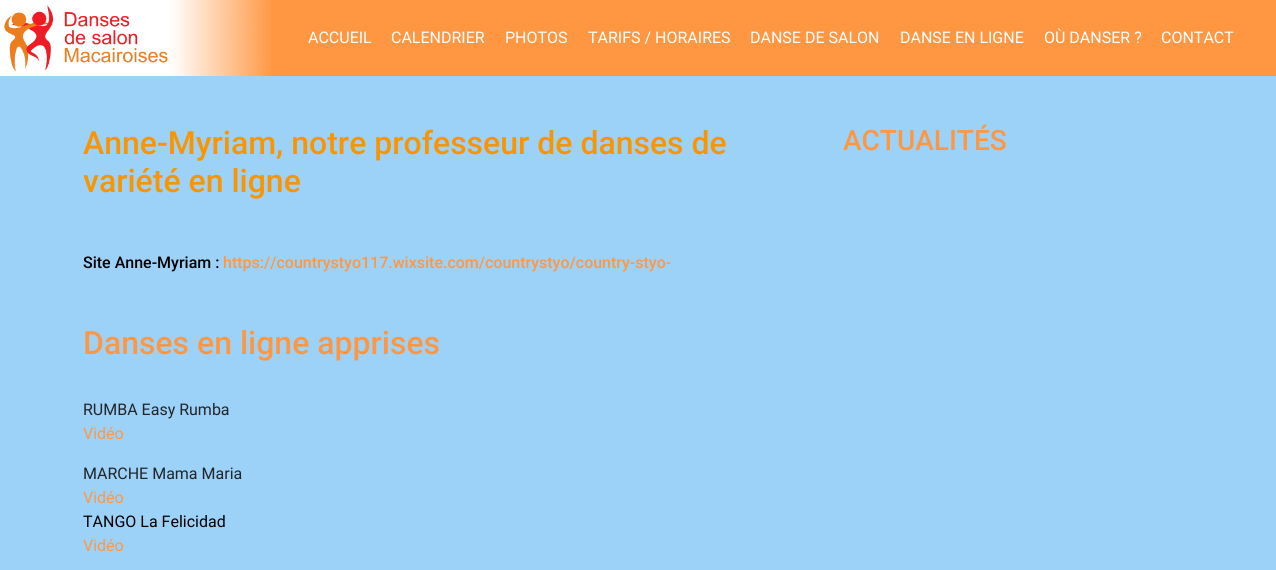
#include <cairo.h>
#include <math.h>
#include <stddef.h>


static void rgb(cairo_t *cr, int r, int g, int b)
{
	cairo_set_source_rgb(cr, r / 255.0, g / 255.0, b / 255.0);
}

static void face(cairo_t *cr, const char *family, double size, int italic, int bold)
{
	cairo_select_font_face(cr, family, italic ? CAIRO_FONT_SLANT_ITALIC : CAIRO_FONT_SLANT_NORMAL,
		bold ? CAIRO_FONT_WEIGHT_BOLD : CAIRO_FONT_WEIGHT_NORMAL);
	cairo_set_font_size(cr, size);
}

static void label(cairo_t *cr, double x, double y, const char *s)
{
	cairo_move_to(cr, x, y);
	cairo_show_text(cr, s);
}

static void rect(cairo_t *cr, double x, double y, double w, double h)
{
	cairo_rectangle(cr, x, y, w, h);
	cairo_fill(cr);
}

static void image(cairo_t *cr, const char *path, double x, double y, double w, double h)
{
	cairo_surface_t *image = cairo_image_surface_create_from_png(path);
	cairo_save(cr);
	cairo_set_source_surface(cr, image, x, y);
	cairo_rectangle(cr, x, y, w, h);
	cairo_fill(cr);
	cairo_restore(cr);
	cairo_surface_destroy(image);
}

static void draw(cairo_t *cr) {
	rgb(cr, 156, 210, 248);
	cairo_paint(cr);
	rgb(cr, 255, 151, 66);
	rect(cr, 171, 0, 1105, 76);
	image(cr, "image0.png", 0, 0, 272, 76);
	face(cr, "Roboto", 16, 0, 0);
	rgb(cr, 255, 255, 255);
	label(cr, 308, 43, "ACCUEIL");
	label(cr, 391, 43, "CALENDRIER");
	label(cr, 505, 43, "PHOTOS");
	label(cr, 588, 43, "TARIFS / HORAIRES");
	label(cr, 750, 43, "DANSE DE SALON");
	label(cr, 900, 43, "DANSE EN LIGNE");
	label(cr, 1044, 43, "OÙ DANSER ?");
	label(cr, 1161, 43, "CONTACT");
	face(cr, "Roboto Medium", 32, 0, 0);
	rgb(cr, 250, 149, 0);
	label(cr, 83, 154, "Anne-Myriam, notre professeur de danses de");
	label(cr, 83, 192, "variété en ligne");
	face(cr, "Roboto Medium", 16, 0, 0);
	rgb(cr, 0, 0, 0);
	label(cr, 83, 268, "Site Anne-Myriam :");
	rgb(cr, 255, 151, 66);
	label(cr, 223, 268, "https://countrystyo117.wixsite.com/countrystyo/country-styo-");
	face(cr, "Roboto Medium", 32, 0, 0);
	label(cr, 83, 354, "Danses en ligne apprises");
	face(cr, "Roboto", 16, 0, 0);
	rgb(cr, 33, 37, 41);
	label(cr, 83, 415, "RUMBA Easy Rumba");
	rgb(cr, 255, 151, 66);
	label(cr, 83, 439, "Vidéo");
	rgb(cr, 33, 37, 41);
	label(cr, 83, 479, "MARCHE Mama Maria");
	rgb(cr, 255, 151, 66);
	label(cr, 83, 503, "Vidéo");
	rgb(cr, 0, 0, 0);
	label(cr, 83, 527, "TANGO La Felicidad");
	rgb(cr, 255, 151, 66);
	label(cr, 83, 551, "Vidéo");
	face(cr, "Roboto Medium", 28, 0, 0);
	label(cr, 843, 150, "ACTUALITÉS");
}

int main(void) {
	cairo_surface_t *surface = cairo_image_surface_create(CAIRO_FORMAT_RGB24, 1276, 570);
	cairo_t *cr = cairo_create(surface);
	cairo_font_options_t *options = cairo_font_options_create();
	cairo_font_options_set_hint_metrics(options, CAIRO_HINT_METRICS_OFF);
	cairo_font_options_set_hint_style(options, CAIRO_HINT_STYLE_NONE);
	cairo_set_font_options(cr, options);
	cairo_set_miter_limit(cr, 4);
	draw(cr);
	cairo_surface_write_to_png(surface, "render.png");
	cairo_font_options_destroy(options);
	cairo_destroy(cr);
	cairo_surface_destroy(surface);
	return 0;
}
